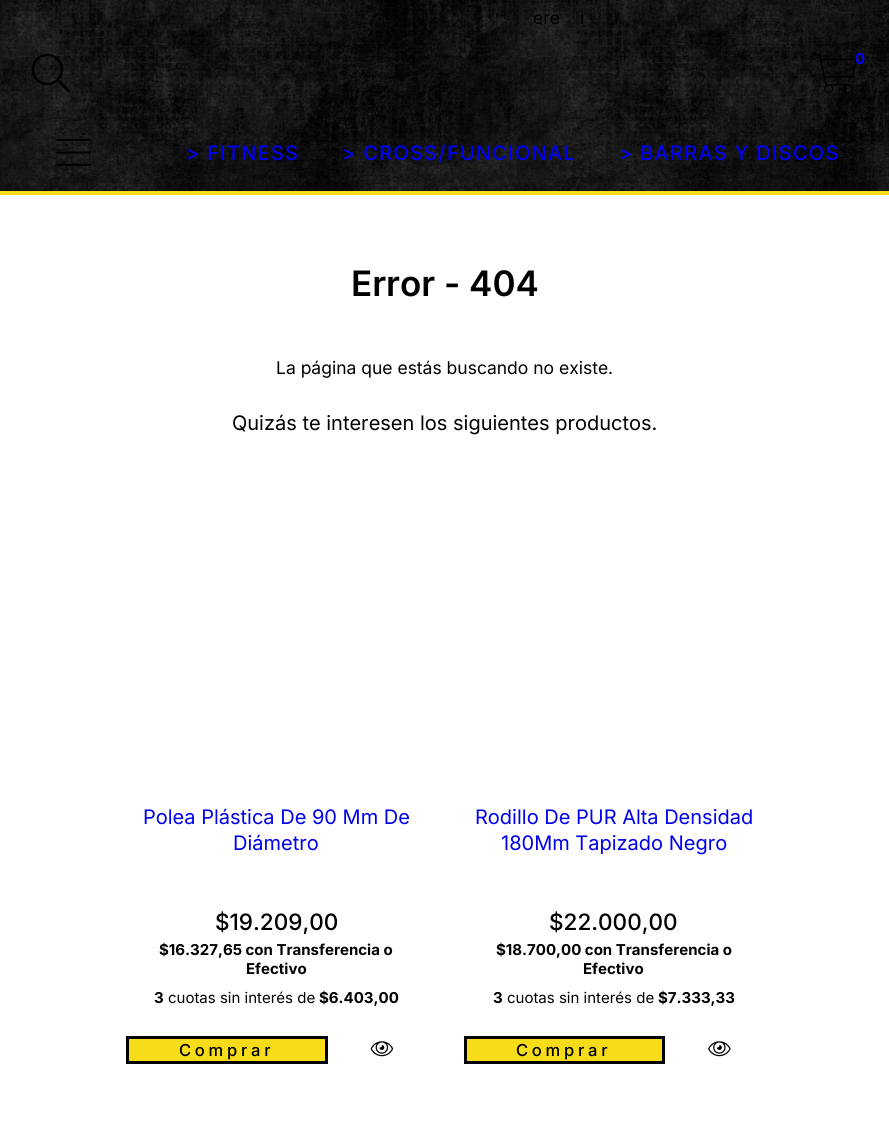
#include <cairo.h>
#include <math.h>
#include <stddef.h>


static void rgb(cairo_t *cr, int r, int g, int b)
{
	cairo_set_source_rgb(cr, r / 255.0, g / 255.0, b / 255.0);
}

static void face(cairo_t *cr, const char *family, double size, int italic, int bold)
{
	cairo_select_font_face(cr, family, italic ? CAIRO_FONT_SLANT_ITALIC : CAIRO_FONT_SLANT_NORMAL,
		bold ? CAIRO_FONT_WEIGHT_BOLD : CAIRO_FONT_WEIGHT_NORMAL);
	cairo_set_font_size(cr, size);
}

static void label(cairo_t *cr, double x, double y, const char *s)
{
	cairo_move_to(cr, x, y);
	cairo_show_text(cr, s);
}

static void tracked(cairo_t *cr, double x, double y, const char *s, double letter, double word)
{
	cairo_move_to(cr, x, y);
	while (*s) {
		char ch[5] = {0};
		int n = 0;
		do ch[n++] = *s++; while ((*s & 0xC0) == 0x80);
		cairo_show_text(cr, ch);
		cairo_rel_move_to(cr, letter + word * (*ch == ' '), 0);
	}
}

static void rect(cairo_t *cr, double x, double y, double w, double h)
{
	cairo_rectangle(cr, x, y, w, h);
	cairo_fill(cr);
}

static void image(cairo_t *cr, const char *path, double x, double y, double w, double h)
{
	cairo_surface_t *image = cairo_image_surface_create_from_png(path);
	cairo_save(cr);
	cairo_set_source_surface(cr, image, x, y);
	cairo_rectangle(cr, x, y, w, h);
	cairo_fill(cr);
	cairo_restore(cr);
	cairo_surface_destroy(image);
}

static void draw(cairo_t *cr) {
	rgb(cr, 255, 255, 255);
	cairo_paint(cr);
	image(cr, "image0.png", 0, 0, 889, 191);
	face(cr, "Inter", 17.5, 0, 0);
	rgb(cr, 0, 0, 0);
	label(cr, 533, 24, "ere");
	label(cr, 580, 24, "i");
	image(cr, "image1.png", 31, 54, 40, 39);
	image(cr, "image2.png", 812, 54, 45, 40);
	face(cr, "Inter", 15, 0, 1);
	rgb(cr, 0, 0, 238);
	label(cr, 855, 64, "0");
	rgb(cr, 247, 220, 26);
	rect(cr, 0, 191, 889, 4);
	image(cr, "image3.png", 56, 138, 35, 28);
	face(cr, "Inter Medium", 20, 0, 0);
	rgb(cr, 0, 0, 238);
	tracked(cr, 186, 160, "> FITNESS", 1.25, 0);
	tracked(cr, 342, 160, "> CROSS/FUNCIONAL", 1.25, 0);
	tracked(cr, 619, 160, "> BARRAS Y DISCOS", 1.25, 0);
	face(cr, "Inter SemiBold", 35, 0, 0);
	rgb(cr, 0, 0, 0);
	label(cr, 351, 296, "Error - 404");
	face(cr, "Inter", 17.5, 0, 0);
	label(cr, 276, 374, "La página que estás buscando no existe.");
	face(cr, "Inter", 20, 0, 0);
	label(cr, 232, 430, "Quizás te interesen los siguientes productos.");
	rgb(cr, 0, 0, 238);
	label(cr, 143, 824, "Polea Plástica De 90 Mm De");
	label(cr, 233, 850, "Diámetro");
	face(cr, "Inter Medium", 22.5, 0, 0);
	rgb(cr, 0, 0, 0);
	label(cr, 215, 930, "$19.209,00");
	face(cr, "Inter", 15, 0, 1);
	label(cr, 159, 955, "$16.327,65 con Transferencia o");
	label(cr, 246, 974, "Efectivo");
	label(cr, 154, 1003, "3");
	face(cr, "Inter", 15, 0, 0);
	label(cr, 168, 1003, "cuotas sin interés de");
	face(cr, "Inter", 15, 0, 1);
	label(cr, 319, 1003, "$6.403,00");
	rgb(cr, 247, 220, 26);
	cairo_rectangle(cr, 127.5, 1037.5, 199, 25);
	cairo_fill_preserve(cr);
	rgb(cr, 0, 0, 0);
	cairo_set_line_width(cr, 3);
	cairo_stroke(cr);
	face(cr, "Inter Medium", 16.5, 0, 0);
	tracked(cr, 179, 1056, "Comprar", 3.75, 0);
	image(cr, "image4.png", 370, 1041, 24, 16);
	face(cr, "Inter", 20, 0, 0);
	rgb(cr, 0, 0, 238);
	label(cr, 475, 824, "Rodillo De PUR Alta Densidad");
	label(cr, 501, 850, "180Mm Tapizado Negro");
	face(cr, "Inter Medium", 22.5, 0, 0);
	rgb(cr, 0, 0, 0);
	label(cr, 549, 930, "$22.000,00");
	face(cr, "Inter", 15, 0, 1);
	label(cr, 496, 955, "$18.700,00 con Transferencia o");
	label(cr, 583, 974, "Efectivo");
	label(cr, 493, 1003, "3");
	face(cr, "Inter", 15, 0, 0);
	label(cr, 507, 1003, "cuotas sin interés de");
	face(cr, "Inter", 15, 0, 1);
	label(cr, 658, 1003, "$7.333,33");
	rgb(cr, 247, 220, 26);
	cairo_rectangle(cr, 465.5, 1037.5, 198, 25);
	cairo_fill_preserve(cr);
	rgb(cr, 0, 0, 0);
	cairo_stroke(cr);
	face(cr, "Inter Medium", 16.5, 0, 0);
	tracked(cr, 516, 1056, "Comprar", 3.75, 0);
	image(cr, "image5.png", 708, 1041, 23, 16);
}

int main(void) {
	cairo_surface_t *surface = cairo_image_surface_create(CAIRO_FORMAT_RGB24, 889, 1127);
	cairo_t *cr = cairo_create(surface);
	cairo_font_options_t *options = cairo_font_options_create();
	cairo_font_options_set_hint_metrics(options, CAIRO_HINT_METRICS_OFF);
	cairo_font_options_set_hint_style(options, CAIRO_HINT_STYLE_NONE);
	cairo_set_font_options(cr, options);
	cairo_set_miter_limit(cr, 4);
	draw(cr);
	cairo_surface_write_to_png(surface, "render.png");
	cairo_font_options_destroy(options);
	cairo_destroy(cr);
	cairo_surface_destroy(surface);
	return 0;
}
